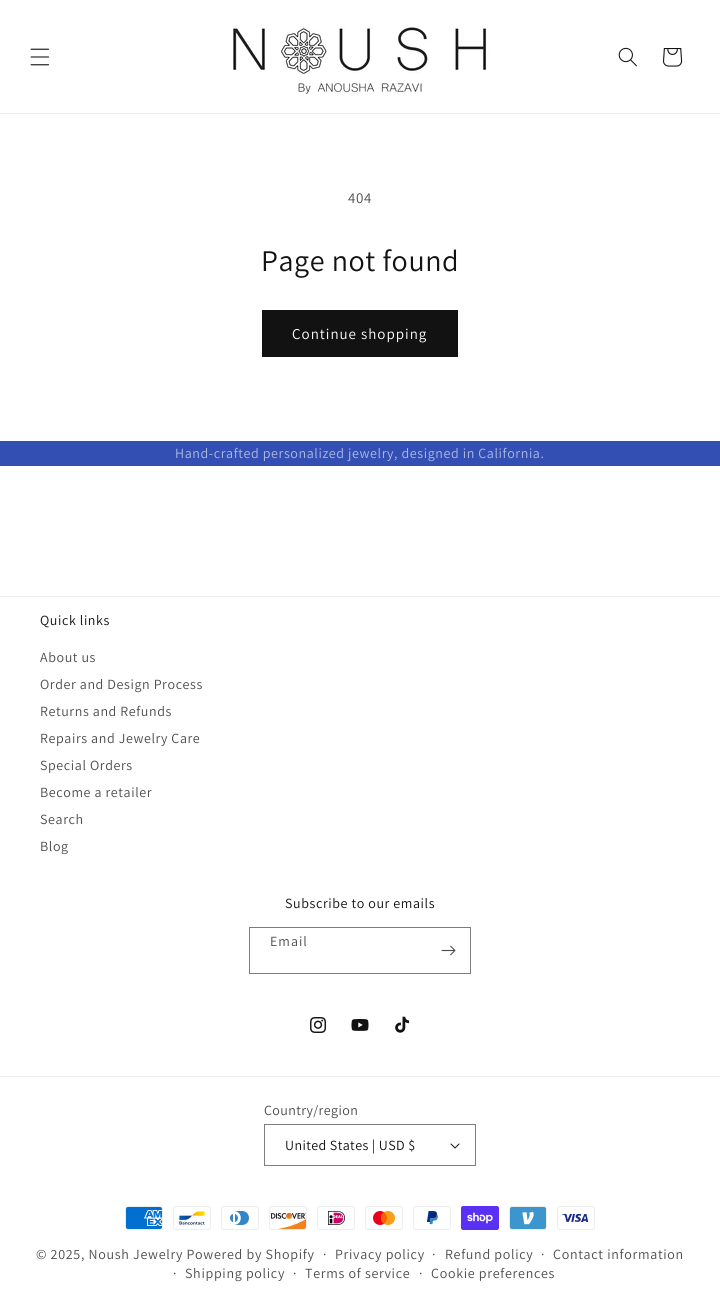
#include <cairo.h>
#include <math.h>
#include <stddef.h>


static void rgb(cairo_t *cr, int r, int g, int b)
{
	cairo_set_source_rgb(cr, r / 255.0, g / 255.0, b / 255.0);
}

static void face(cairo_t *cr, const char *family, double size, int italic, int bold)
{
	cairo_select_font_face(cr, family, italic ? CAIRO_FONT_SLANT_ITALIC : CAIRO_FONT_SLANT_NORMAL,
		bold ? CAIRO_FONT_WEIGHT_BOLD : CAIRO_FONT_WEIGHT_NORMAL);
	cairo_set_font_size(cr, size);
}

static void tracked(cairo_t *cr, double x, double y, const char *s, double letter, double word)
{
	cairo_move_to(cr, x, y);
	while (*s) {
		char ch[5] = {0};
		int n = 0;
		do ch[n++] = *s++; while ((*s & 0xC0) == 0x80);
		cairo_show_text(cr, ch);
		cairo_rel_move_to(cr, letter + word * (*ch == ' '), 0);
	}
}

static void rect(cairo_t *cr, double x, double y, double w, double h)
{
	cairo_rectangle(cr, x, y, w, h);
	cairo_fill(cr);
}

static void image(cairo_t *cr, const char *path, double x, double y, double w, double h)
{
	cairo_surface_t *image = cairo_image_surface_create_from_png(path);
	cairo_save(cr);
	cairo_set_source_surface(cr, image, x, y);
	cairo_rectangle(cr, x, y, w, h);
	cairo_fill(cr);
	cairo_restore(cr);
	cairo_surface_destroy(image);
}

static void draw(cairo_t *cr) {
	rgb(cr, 255, 255, 255);
	cairo_paint(cr);
	rgb(cr, 236, 236, 236);
	rect(cr, 0, 113, 720, 1);
	image(cr, "image0.png", 30, 48, 20, 18);
	image(cr, "image1.png", 233, 26, 256, 68);
	image(cr, "image2.png", 618, 47, 19, 20);
	image(cr, "image3.png", 663, 48, 20, 19);
	face(cr, "Assistant", 15, 0, 0);
	rgb(cr, 77, 77, 77);
	tracked(cr, 348, 203, "404", 0.6, 0);
	face(cr, "Assistant", 30, 0, 0);
	rgb(cr, 18, 18, 18);
	tracked(cr, 261, 271, "Page not found", 0.6, 0);
	rect(cr, 262, 310, 196, 47);
	face(cr, "Assistant", 15, 0, 0);
	rgb(cr, 255, 255, 255);
	tracked(cr, 292, 339, "Continue shopping", 1, 0);
	rgb(cr, 51, 79, 180);
	rect(cr, 0, 441, 720, 25);
	face(cr, "Assistant", 14, 0, 0);
	rgb(cr, 173, 185, 225);
	tracked(cr, 175, 458, "Hand-crafted personalized jewelry, designed in California.", 0.6, 0);
	rgb(cr, 236, 236, 236);
	rect(cr, 0, 596, 720, 1);
	rgb(cr, 18, 18, 18);
	tracked(cr, 40, 625, "Quick links", 0.6, 0);
	rgb(cr, 77, 77, 77);
	tracked(cr, 40, 662, "About us", 0.6, 0);
	tracked(cr, 40, 689, "Order and Design Process", 0.6, 0);
	tracked(cr, 40, 716, "Returns and Refunds", 0.6, 0);
	tracked(cr, 40, 743, "Repairs and Jewelry Care", 0.6, 0);
	tracked(cr, 40, 770, "Special Orders", 0.6, 0);
	tracked(cr, 40, 797, "Become a retailer", 0.6, 0);
	tracked(cr, 40, 824, "Search", 0.6, 0);
	tracked(cr, 40, 851, "Blog", 0.6, 0);
	rgb(cr, 18, 18, 18);
	tracked(cr, 285, 908, "Subscribe to our emails", 0.6, 0);
	cairo_rectangle(cr, 249.5, 927.5, 221, 46);
	rgb(cr, 125, 125, 125);
	cairo_set_line_width(cr, 1);
	cairo_stroke(cr);
	rgb(cr, 77, 77, 77);
	tracked(cr, 270, 946, "Email", 1, 0);
	image(cr, "image4.png", 441, 945, 15, 11);
	image(cr, "image5.png", 310, 1017, 16, 16);
	image(cr, "image6.png", 351, 1019, 18, 12);
	image(cr, "image7.png", 395, 1016, 15, 17);
	rgb(cr, 236, 236, 236);
	rect(cr, 0, 1076, 720, 1);
	rgb(cr, 77, 77, 77);
	tracked(cr, 264, 1115, "Country/region", 0.4, 0);
	image(cr, "image8.png", 450, 1143, 10, 6);
	cairo_rectangle(cr, 264.5, 1124.5, 211, 41);
	rgb(cr, 125, 125, 125);
	cairo_stroke(cr);
	rgb(cr, 18, 18, 18);
	tracked(cr, 285, 1150, "United States | USD $", 0.4, 0);
	image(cr, "image9.png", 125, 1206, 38, 24);
	image(cr, "image10.png", 173, 1206, 38, 24);
	image(cr, "image11.png", 221, 1206, 38, 24);
	image(cr, "image12.png", 269, 1206, 38, 24);
	image(cr, "image13.png", 317, 1206, 38, 24);
	image(cr, "image14.png", 365, 1206, 38, 24);
	image(cr, "image15.png", 413, 1206, 38, 24);
	image(cr, "image16.png", 461, 1206, 38, 24);
	image(cr, "image17.png", 509, 1206, 38, 24);
	image(cr, "image18.png", 557, 1206, 38, 24);
	rgb(cr, 77, 77, 77);
	tracked(cr, 36, 1259, "© 2025, Noush Jewelry Powered by Shopify", 0.7, 0);
	tracked(cr, 323, 1259, "·", 0.7, 0);
	tracked(cr, 335, 1259, "Privacy policy", 0.7, 0);
	tracked(cr, 432, 1259, "·", 0.7, 0);
	tracked(cr, 445, 1259, "Refund policy", 0.7, 0);
	tracked(cr, 541, 1259, "·", 0.7, 0);
	tracked(cr, 553, 1259, "Contact information", 0.7, 0);
	tracked(cr, 173, 1278, "·", 0.7, 0);
	tracked(cr, 185, 1278, "Shipping policy", 0.7, 0);
	tracked(cr, 293, 1278, "·", 0.7, 0);
	tracked(cr, 305, 1278, "Terms of service", 0.7, 0);
	tracked(cr, 419, 1278, "·", 0.7, 0);
	tracked(cr, 431, 1278, "Cookie preferences", 0.7, 0);
}

int main(void) {
	cairo_surface_t *surface = cairo_image_surface_create(CAIRO_FORMAT_RGB24, 720, 1303);
	cairo_t *cr = cairo_create(surface);
	cairo_font_options_t *options = cairo_font_options_create();
	cairo_font_options_set_hint_metrics(options, CAIRO_HINT_METRICS_OFF);
	cairo_font_options_set_hint_style(options, CAIRO_HINT_STYLE_NONE);
	cairo_set_font_options(cr, options);
	cairo_set_miter_limit(cr, 4);
	draw(cr);
	cairo_surface_write_to_png(surface, "render.png");
	cairo_font_options_destroy(options);
	cairo_destroy(cr);
	cairo_surface_destroy(surface);
	return 0;
}
